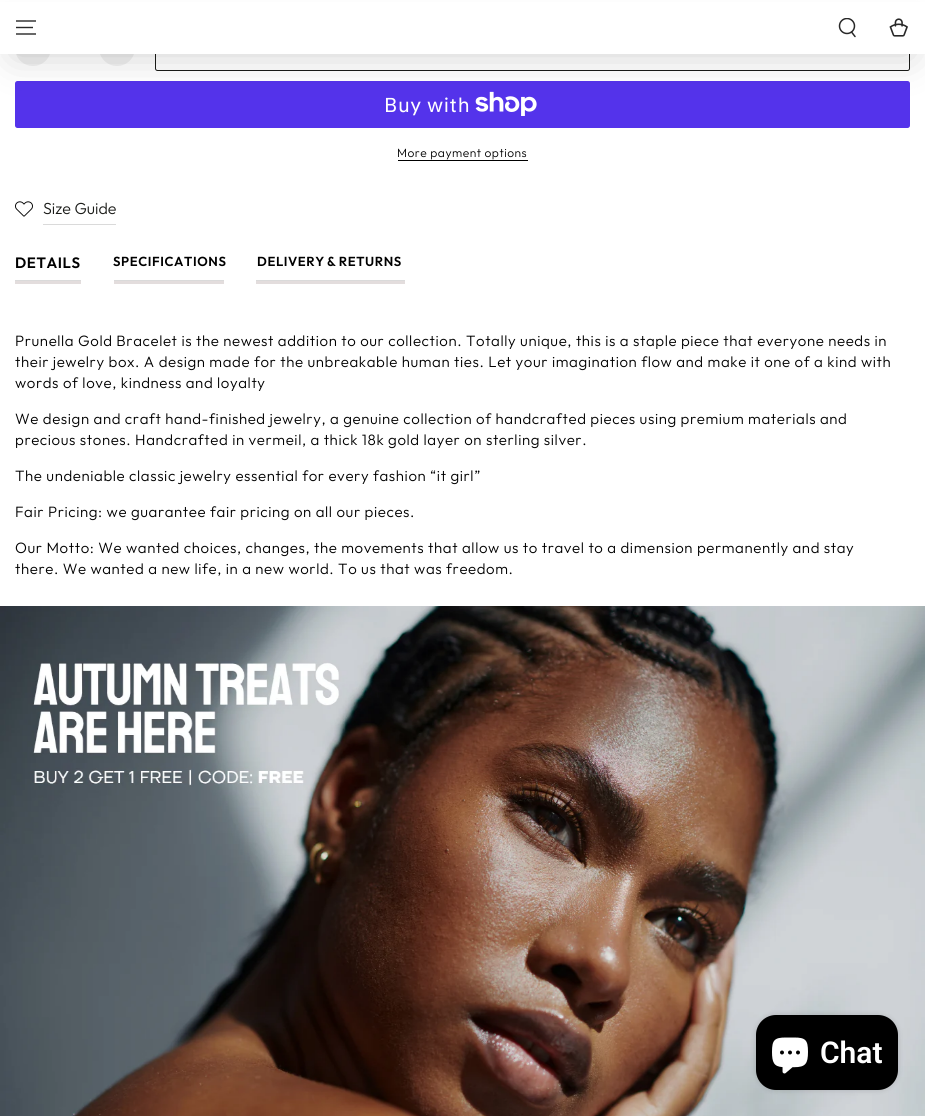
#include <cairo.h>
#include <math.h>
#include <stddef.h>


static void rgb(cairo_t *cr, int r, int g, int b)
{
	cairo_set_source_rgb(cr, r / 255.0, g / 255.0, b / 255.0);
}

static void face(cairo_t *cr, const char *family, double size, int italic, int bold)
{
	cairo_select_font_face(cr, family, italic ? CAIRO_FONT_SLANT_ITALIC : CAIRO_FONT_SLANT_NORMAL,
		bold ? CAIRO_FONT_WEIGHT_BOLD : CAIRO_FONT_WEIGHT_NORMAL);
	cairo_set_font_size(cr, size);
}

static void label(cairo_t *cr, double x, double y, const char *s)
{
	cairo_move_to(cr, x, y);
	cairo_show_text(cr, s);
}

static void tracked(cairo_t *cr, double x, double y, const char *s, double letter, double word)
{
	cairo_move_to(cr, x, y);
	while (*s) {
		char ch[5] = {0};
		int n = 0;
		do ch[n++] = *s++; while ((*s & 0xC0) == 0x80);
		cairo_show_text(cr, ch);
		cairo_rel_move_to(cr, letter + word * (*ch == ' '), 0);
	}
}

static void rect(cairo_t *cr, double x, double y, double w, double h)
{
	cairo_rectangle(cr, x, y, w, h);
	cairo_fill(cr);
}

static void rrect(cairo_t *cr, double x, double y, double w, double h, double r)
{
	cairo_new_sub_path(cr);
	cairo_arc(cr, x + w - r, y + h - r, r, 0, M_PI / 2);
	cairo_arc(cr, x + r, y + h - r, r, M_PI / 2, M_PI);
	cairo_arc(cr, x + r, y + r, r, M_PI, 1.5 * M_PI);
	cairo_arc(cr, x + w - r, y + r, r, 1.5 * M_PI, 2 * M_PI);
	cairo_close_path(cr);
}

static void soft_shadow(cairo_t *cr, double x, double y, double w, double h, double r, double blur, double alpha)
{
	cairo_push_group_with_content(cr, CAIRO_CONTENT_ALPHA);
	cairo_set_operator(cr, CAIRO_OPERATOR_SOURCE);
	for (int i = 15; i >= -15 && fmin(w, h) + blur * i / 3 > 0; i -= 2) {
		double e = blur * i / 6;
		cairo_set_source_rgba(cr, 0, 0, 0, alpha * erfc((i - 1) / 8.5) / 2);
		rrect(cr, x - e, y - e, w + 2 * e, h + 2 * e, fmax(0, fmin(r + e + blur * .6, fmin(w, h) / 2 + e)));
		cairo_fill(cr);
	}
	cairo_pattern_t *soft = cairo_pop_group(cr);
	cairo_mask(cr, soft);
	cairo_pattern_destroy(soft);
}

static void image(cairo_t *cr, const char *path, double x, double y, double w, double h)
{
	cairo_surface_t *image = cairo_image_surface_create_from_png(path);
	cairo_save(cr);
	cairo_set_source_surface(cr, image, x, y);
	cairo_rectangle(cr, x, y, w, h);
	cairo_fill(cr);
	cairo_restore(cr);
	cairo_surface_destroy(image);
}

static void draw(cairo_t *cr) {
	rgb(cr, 255, 255, 255);
	cairo_paint(cr);
	rgb(cr, 240, 240, 240);
	cairo_arc(cr, 33, 48, 18, 0, 2 * M_PI);
	cairo_fill(cr);
	cairo_arc(cr, 117, 48, 18, 0, 2 * M_PI);
	cairo_fill(cr);
	rrect(cr, 155.5, 25.5, 754, 45, 2);
	rgb(cr, 26, 27, 24);
	cairo_set_line_width(cr, 1);
	cairo_stroke(cr);
	rgb(cr, 84, 51, 235);
	rrect(cr, 15, 81, 895, 47, 2.5);
	cairo_fill(cr);
	image(cr, "image1.png", 475, 91, 62, 25);
	rgb(cr, 0, 0, 0);
	soft_shadow(cr, 15, 34, 895, 20, 10, 20, 0.2);
	rgb(cr, 255, 255, 255);
	rect(cr, 0, 2, 925, 52);
	cairo_new_path(cr);
	cairo_move_to(cr, 16, 34);
	cairo_line_to(cr, 36, 34);
	cairo_move_to(cr, 16, 27.5);
	cairo_line_to(cr, 33, 27.5);
	cairo_move_to(cr, 16, 21);
	cairo_line_to(cr, 36, 21);
	rgb(cr, 40, 40, 40);
	cairo_set_line_width(cr, 1.4);
	cairo_stroke(cr);
	cairo_save(cr);
	cairo_rectangle(cr, 838, 18, 20, 20);
	cairo_clip(cr);
	cairo_arc(cr, 847, 26, 7.5, 0, 2 * M_PI);
	cairo_set_line_width(cr, 1.5);
	cairo_stroke(cr);
	cairo_restore(cr);
	cairo_new_path(cr);
	cairo_move_to(cr, 851.5, 32);
	cairo_line_to(cr, 855, 36.5);
	cairo_set_line_width(cr, 1.5);
	cairo_set_line_cap(cr, CAIRO_LINE_CAP_ROUND);
	cairo_stroke(cr);
	image(cr, "image0.png", 889, 18, 19, 19);
	face(cr, "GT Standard", 20, 0, 0);
	rgb(cr, 255, 255, 255);
	tracked(cr, 384, 112, "Buy with", 0.6, 0);
	face(cr, "Outfit Light", 12, 0, 0);
	rgb(cr, 0, 0, 0);
	tracked(cr, 397, 157, "More payment options", 0.5, 0);
	rect(cr, 398, 160, 130, 1);
	image(cr, "image2.png", 15, 201, 18, 16);
	rgb(cr, 218, 218, 218);
	rect(cr, 43, 224, 73, 1);
	face(cr, "Outfit Light", 16, 0, 0);
	rgb(cr, 26, 27, 24);
	label(cr, 43, 214, "Size Guide");
	rgb(cr, 218, 218, 218);
	rect(cr, 15, 280, 66, 1);
	rgb(cr, 227, 221, 221);
	rect(cr, 15, 281, 66, 3);
	face(cr, "Outfit SemiBold", 15, 0, 0);
	rgb(cr, 0, 0, 0);
	tracked(cr, 15, 268, "DETAILS", 0.6, 0);
	rgb(cr, 218, 218, 218);
	rect(cr, 114, 280, 110, 1);
	rgb(cr, 227, 221, 221);
	rect(cr, 114, 281, 110, 3);
	face(cr, "Outfit SemiBold", 13.1, 0, 0);
	rgb(cr, 0, 0, 0);
	tracked(cr, 113, 266, "SPECIFICATIONS", 0.6, 0);
	rgb(cr, 218, 218, 218);
	rect(cr, 256, 280, 149, 1);
	rgb(cr, 227, 221, 221);
	rect(cr, 256, 281, 149, 3);
	rgb(cr, 0, 0, 0);
	tracked(cr, 257, 266, "DELIVERY & RETURNS", 0.6, -1);
	face(cr, "Outfit Light", 15, 0, 0);
	tracked(cr, 15, 346, "Prunella Gold Bracelet is the newest addition to our collection. Totally unique, this is a staple piece that everyone needs in", 0.6, 0);
	tracked(cr, 15, 367, "their jewelry box. A design made for the unbreakable human ties. Let your imagination flow and make it one of a kind with", 0.6, 0);
	tracked(cr, 15, 388, "words of love, kindness and loyalty", 0.6, 0);
	tracked(cr, 15, 424, "We design and craft hand-finished jewelry, a genuine collection of handcrafted pieces using premium materials and", 0.6, 0);
	tracked(cr, 15, 445, "precious stones. Handcrafted in vermeil, a thick 18k gold layer on sterling silver.", 0.6, 0);
	tracked(cr, 15, 481, "The undeniable classic jewelry essential for every fashion “it girl”", 0.6, 0);
	tracked(cr, 15, 517, "Fair Pricing: we guarantee fair pricing on all our pieces.", 0.6, 0);
	tracked(cr, 15, 553, "Our Motto: We wanted choices, changes, the movements that allow us to travel to a dimension permanently and stay", 0.6, 0);
	tracked(cr, 15, 574, "there. We wanted a new life, in a new world. To us that was freedom.", 0.6, 0);
	image(cr, "image3.png", 0, 606, 925, 510);
	rgb(cr, 0, 0, 0);
	soft_shadow(cr, 756, 1015, 142, 75, 20, 3, 0.15);
	rgb(cr, 0, 0, 0);
	rrect(cr, 756, 1015, 142, 75, 20);
	cairo_fill(cr);
	image(cr, "image4.png", 772, 1037, 36, 37);
	face(cr, "Roboto SemiBold", 30, 0, 0);
	rgb(cr, 255, 255, 255);
	label(cr, 820, 1063, "Chat");
}

int main(void) {
	cairo_surface_t *surface = cairo_image_surface_create(CAIRO_FORMAT_RGB24, 925, 1116);
	cairo_t *cr = cairo_create(surface);
	cairo_font_options_t *options = cairo_font_options_create();
	cairo_font_options_set_hint_metrics(options, CAIRO_HINT_METRICS_OFF);
	cairo_font_options_set_hint_style(options, CAIRO_HINT_STYLE_NONE);
	cairo_set_font_options(cr, options);
	cairo_set_miter_limit(cr, 4);
	draw(cr);
	cairo_surface_write_to_png(surface, "render.png");
	cairo_font_options_destroy(options);
	cairo_destroy(cr);
	cairo_surface_destroy(surface);
	return 0;
}
